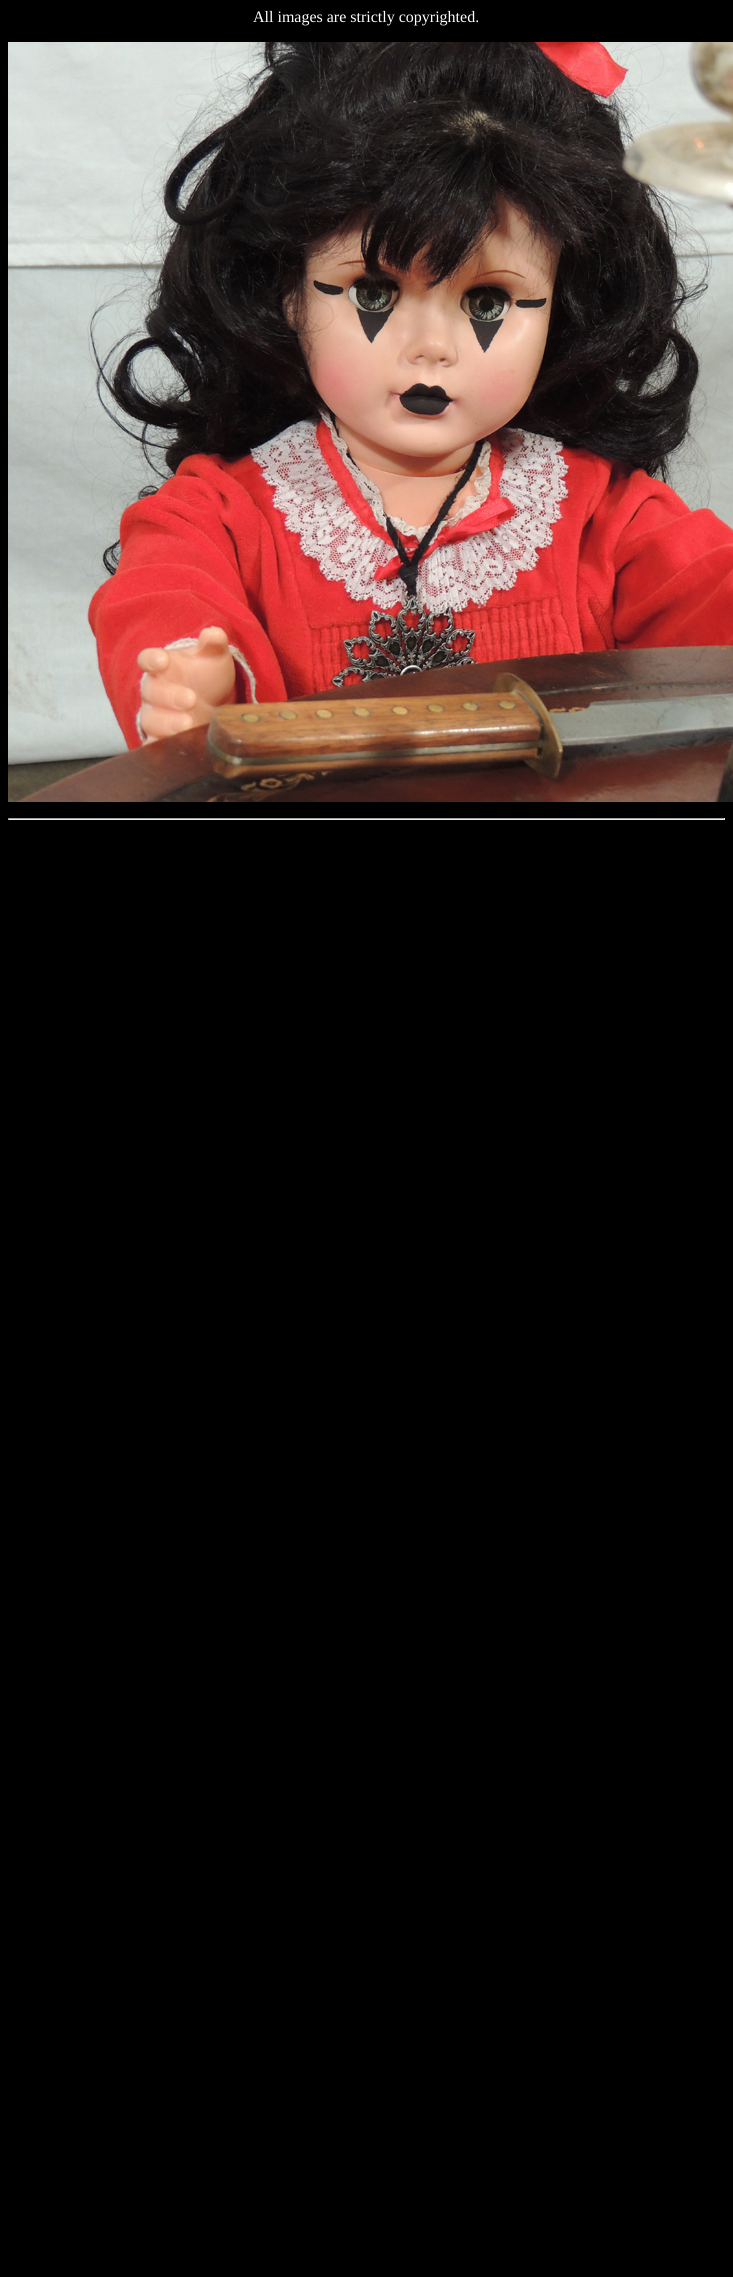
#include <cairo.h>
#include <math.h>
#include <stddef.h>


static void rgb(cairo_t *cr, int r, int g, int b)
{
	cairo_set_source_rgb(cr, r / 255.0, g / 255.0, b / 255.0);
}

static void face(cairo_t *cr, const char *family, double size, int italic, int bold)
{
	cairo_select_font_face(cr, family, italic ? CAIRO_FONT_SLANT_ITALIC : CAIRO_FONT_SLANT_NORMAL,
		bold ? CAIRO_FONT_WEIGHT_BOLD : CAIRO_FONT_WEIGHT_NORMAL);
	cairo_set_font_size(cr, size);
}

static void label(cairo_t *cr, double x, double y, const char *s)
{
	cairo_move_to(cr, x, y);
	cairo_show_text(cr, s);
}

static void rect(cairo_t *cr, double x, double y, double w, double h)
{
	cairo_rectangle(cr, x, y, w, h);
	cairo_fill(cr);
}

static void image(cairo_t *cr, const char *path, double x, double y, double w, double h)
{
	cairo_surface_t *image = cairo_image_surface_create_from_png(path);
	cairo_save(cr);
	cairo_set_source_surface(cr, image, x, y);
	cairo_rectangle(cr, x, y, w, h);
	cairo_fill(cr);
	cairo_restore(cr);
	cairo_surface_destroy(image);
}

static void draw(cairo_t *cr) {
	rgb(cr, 0, 0, 0);
	cairo_paint(cr);
	face(cr, "Liberation Serif", 16, 0, 0);
	rgb(cr, 255, 255, 255);
	label(cr, 253, 22, "All images are strictly copyrighted.");
	image(cr, "image0.png", 8, 42, 725, 760);
	rgb(cr, 159, 159, 159);
	rect(cr, 8, 818, 717, 1);
	rgb(cr, 238, 238, 238);
	rect(cr, 724, 818, 1, 2);
	rect(cr, 8, 819, 717, 1);
	rgb(cr, 159, 159, 159);
	rect(cr, 8, 818, 1, 2);
}

int main(void) {
	cairo_surface_t *surface = cairo_image_surface_create(CAIRO_FORMAT_RGB24, 733, 2277);
	cairo_t *cr = cairo_create(surface);
	cairo_font_options_t *options = cairo_font_options_create();
	cairo_font_options_set_hint_metrics(options, CAIRO_HINT_METRICS_OFF);
	cairo_font_options_set_hint_style(options, CAIRO_HINT_STYLE_NONE);
	cairo_set_font_options(cr, options);
	cairo_set_miter_limit(cr, 4);
	draw(cr);
	cairo_surface_write_to_png(surface, "render.png");
	cairo_font_options_destroy(options);
	cairo_destroy(cr);
	cairo_surface_destroy(surface);
	return 0;
}
